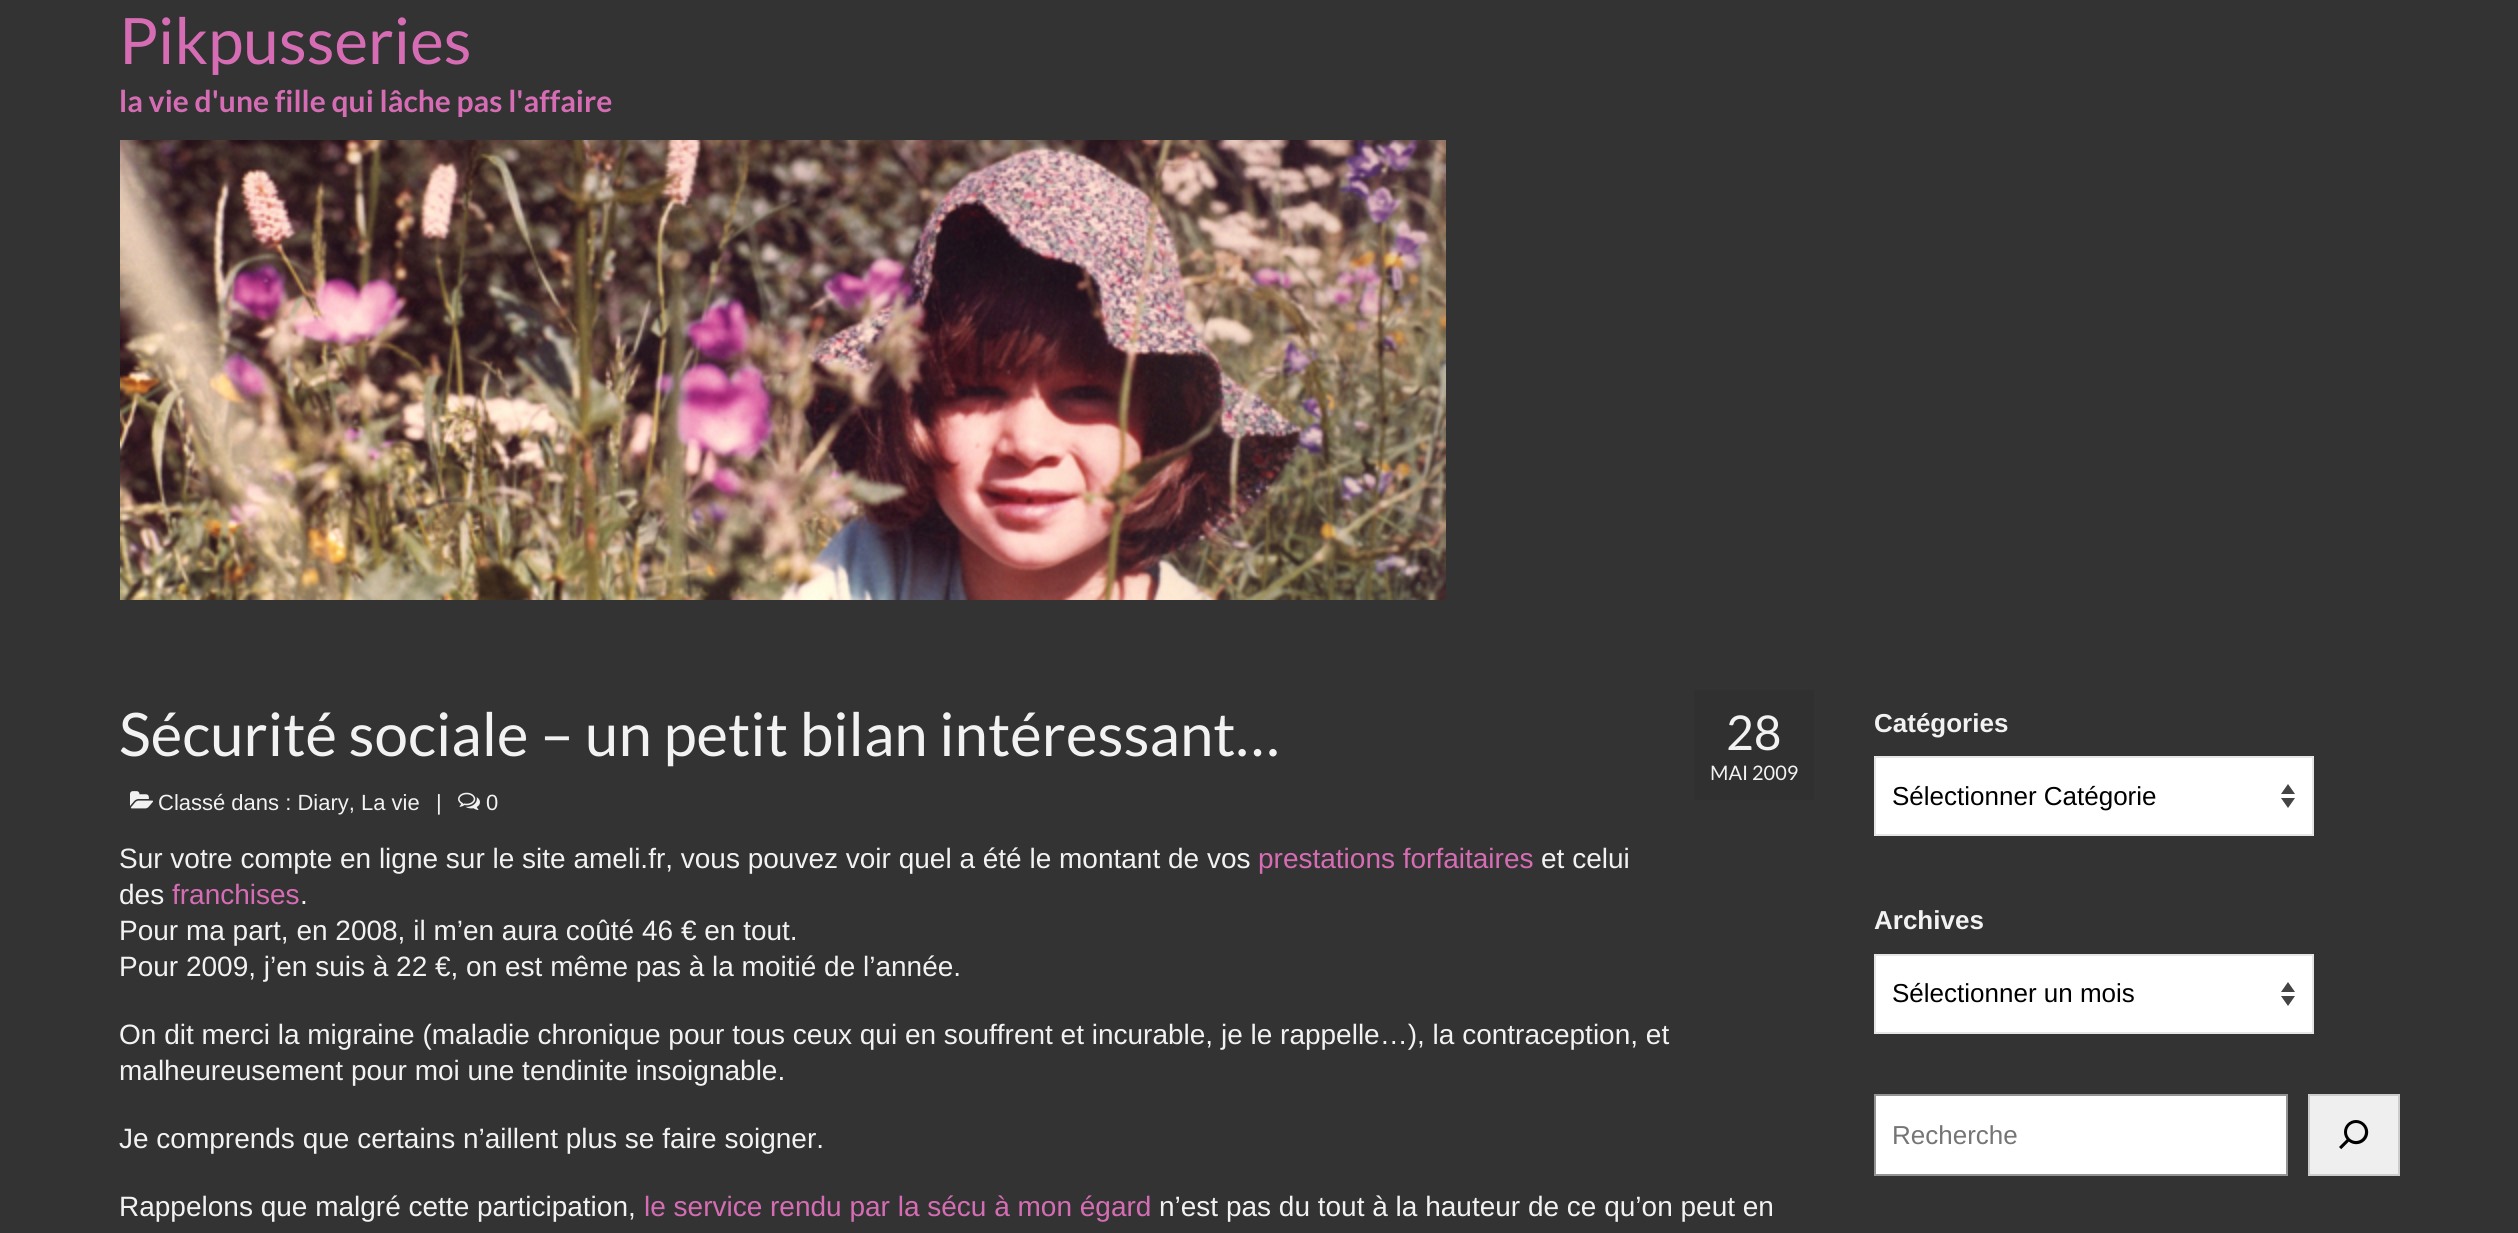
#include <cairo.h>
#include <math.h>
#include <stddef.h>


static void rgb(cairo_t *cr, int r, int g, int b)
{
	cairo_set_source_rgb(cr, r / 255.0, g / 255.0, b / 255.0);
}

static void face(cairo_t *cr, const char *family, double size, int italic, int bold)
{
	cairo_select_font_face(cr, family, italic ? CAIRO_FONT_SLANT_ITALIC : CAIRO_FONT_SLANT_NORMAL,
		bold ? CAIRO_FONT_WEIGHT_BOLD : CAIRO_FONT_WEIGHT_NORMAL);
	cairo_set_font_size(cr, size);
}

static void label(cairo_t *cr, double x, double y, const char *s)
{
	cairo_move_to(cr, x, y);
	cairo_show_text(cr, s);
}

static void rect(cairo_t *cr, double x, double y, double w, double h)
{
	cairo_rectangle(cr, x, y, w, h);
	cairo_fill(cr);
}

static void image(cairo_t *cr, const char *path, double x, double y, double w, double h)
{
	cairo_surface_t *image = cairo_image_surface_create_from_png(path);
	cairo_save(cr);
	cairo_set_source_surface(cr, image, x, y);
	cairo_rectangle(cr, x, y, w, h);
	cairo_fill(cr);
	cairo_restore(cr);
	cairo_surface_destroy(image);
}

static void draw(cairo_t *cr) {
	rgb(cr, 51, 51, 51);
	cairo_paint(cr);
	face(cr, "Lato", 64, 0, 0);
	rgb(cr, 214, 109, 180);
	label(cr, 119, 64, "Pikpusseries");
	face(cr, "Lato", 30, 0, 1);
	label(cr, 119, 112, "la vie d'une fille qui lâche pas l'affaire");
	image(cr, "image0.png", 120, 140, 1326, 460);
	face(cr, "Lato", 60, 0, 0);
	rgb(cr, 242, 242, 242);
	label(cr, 119, 756, "Sécurité sociale – un petit bilan intéressant…");
	image(cr, "image1.png", 130, 791, 23, 18);
	face(cr, "Liberation Sans", 22, 0, 0);
	label(cr, 158, 810, "Classé dans : Diary, La vie");
	label(cr, 436, 810, "|");
	image(cr, "image2.png", 458, 792, 22, 18);
	label(cr, 486, 810, "0");
	rgb(cr, 48, 48, 48);
	rect(cr, 1694, 690, 120, 110);
	face(cr, "Lato", 48, 0, 0);
	rgb(cr, 242, 242, 242);
	label(cr, 1726, 750, "28");
	face(cr, "Lato", 20, 0, 0);
	label(cr, 1710, 780, "MAI 2009");
	face(cr, "Liberation Sans", 28, 0, 0);
	label(cr, 119, 868, "Sur votre compte en ligne sur le site ameli.fr, vous pouvez voir quel a été le montant de vos");
	rgb(cr, 214, 109, 180);
	label(cr, 1258, 868, "prestations forfaitaires");
	rgb(cr, 242, 242, 242);
	label(cr, 1541, 868, "et celui");
	label(cr, 119, 904, "des");
	rgb(cr, 214, 109, 180);
	label(cr, 172, 904, "franchises");
	rgb(cr, 242, 242, 242);
	label(cr, 300, 904, ".");
	label(cr, 119, 940, "Pour ma part, en 2008, il m’en aura coûté 46 € en tout.");
	label(cr, 119, 976, "Pour 2009, j’en suis à 22 €, on est même pas à la moitié de l’année.");
	label(cr, 119, 1044, "On dit merci la migraine (maladie chronique pour tous ceux qui en souffrent et incurable, je le rappelle…), la contraception, et");
	label(cr, 119, 1080, "malheureusement pour moi une tendinite insoignable.");
	label(cr, 119, 1148, "Je comprends que certains n’aillent plus se faire soigner.");
	label(cr, 119, 1216, "Rappelons que malgré cette participation,");
	rgb(cr, 214, 109, 180);
	label(cr, 644, 1216, "le service rendu par la sécu à mon égard");
	rgb(cr, 242, 242, 242);
	label(cr, 1159, 1216, "n’est pas du tout à la hauteur de ce qu’on peut en");
	face(cr, "Liberation Sans", 26, 0, 1);
	label(cr, 1874, 732, "Catégories");
	rgb(cr, 255, 255, 255);
	rect(cr, 1876, 758, 436, 76);
	rgb(cr, 68, 68, 68);
	cairo_new_path(cr);
	cairo_move_to(cr, 2281, 794);
	cairo_line_to(cr, 2288, 784);
	cairo_line_to(cr, 2295, 794);
	cairo_close_path(cr);
	cairo_move_to(cr, 2295, 798);
	cairo_line_to(cr, 2288, 808);
	cairo_line_to(cr, 2281, 798);
	cairo_close_path(cr);
	cairo_fill(cr);
	cairo_rectangle(cr, 1875, 757, 438, 78);
	rgb(cr, 230, 230, 230);
	cairo_stroke(cr);
	face(cr, "Liberation Sans", 26, 0, 0);
	rgb(cr, 0, 0, 0);
	label(cr, 1892, 805, "Sélectionner Catégorie");
	face(cr, "Liberation Sans", 26, 0, 1);
	rgb(cr, 242, 242, 242);
	label(cr, 1874, 929, "Archives");
	rgb(cr, 255, 255, 255);
	rect(cr, 1876, 956, 436, 76);
	rgb(cr, 68, 68, 68);
	cairo_new_path(cr);
	cairo_move_to(cr, 2281, 992);
	cairo_line_to(cr, 2288, 982);
	cairo_line_to(cr, 2295, 992);
	cairo_close_path(cr);
	cairo_move_to(cr, 2295, 996);
	cairo_line_to(cr, 2288, 1006);
	cairo_line_to(cr, 2281, 996);
	cairo_close_path(cr);
	cairo_fill(cr);
	cairo_rectangle(cr, 1875, 955, 438, 78);
	rgb(cr, 230, 230, 230);
	cairo_stroke(cr);
	face(cr, "Liberation Sans", 26, 0, 0);
	rgb(cr, 0, 0, 0);
	label(cr, 1892, 1002, "Sélectionner un mois");
	rgb(cr, 255, 255, 255);
	cairo_rectangle(cr, 1875, 1095, 412, 80);
	cairo_fill_preserve(cr);
	rgb(cr, 148, 148, 148);
	cairo_stroke(cr);
	rgb(cr, 117, 117, 117);
	label(cr, 1892, 1144, "Recherche");
	rgb(cr, 239, 239, 239);
	cairo_rectangle(cr, 2309, 1095, 90, 80);
	cairo_fill_preserve(cr);
	rgb(cr, 204, 204, 204);
	cairo_stroke(cr);
	image(cr, "image3.png", 2339, 1120, 30, 30);
}

int main(void) {
	cairo_surface_t *surface = cairo_image_surface_create(CAIRO_FORMAT_RGB24, 2518, 1233);
	cairo_t *cr = cairo_create(surface);
	cairo_font_options_t *options = cairo_font_options_create();
	cairo_font_options_set_hint_metrics(options, CAIRO_HINT_METRICS_OFF);
	cairo_font_options_set_hint_style(options, CAIRO_HINT_STYLE_NONE);
	cairo_set_font_options(cr, options);
	cairo_set_miter_limit(cr, 4);
	draw(cr);
	cairo_surface_write_to_png(surface, "render.png");
	cairo_font_options_destroy(options);
	cairo_destroy(cr);
	cairo_surface_destroy(surface);
	return 0;
}
